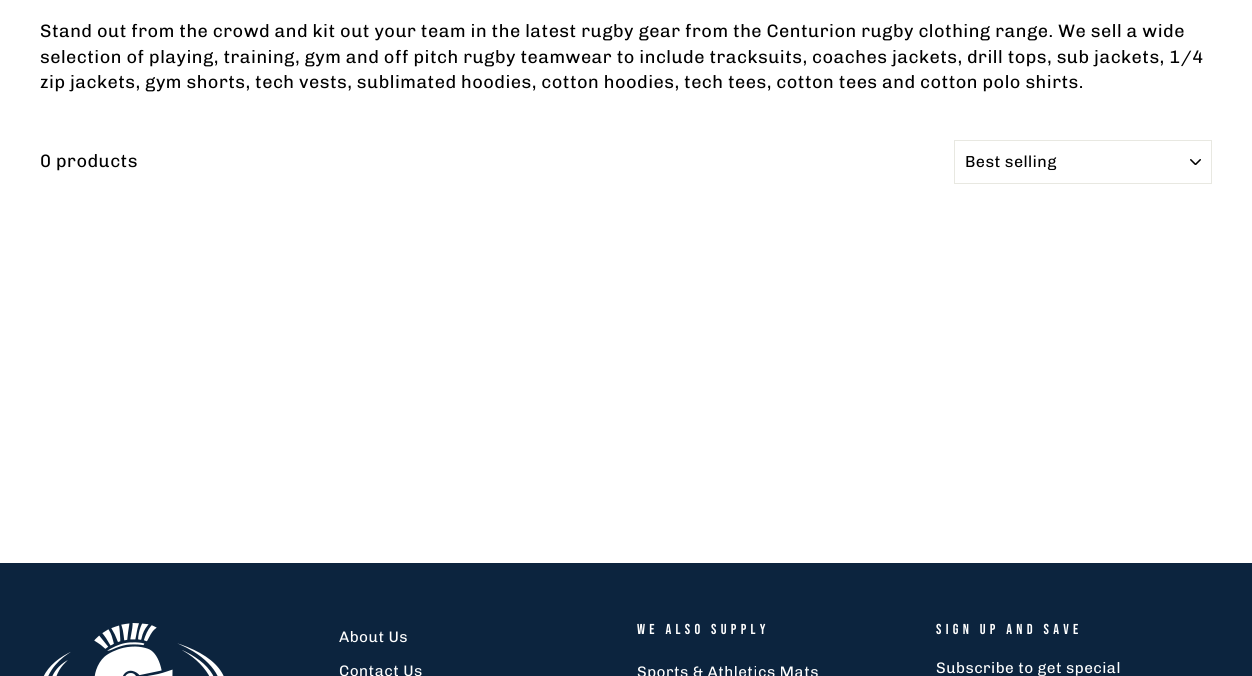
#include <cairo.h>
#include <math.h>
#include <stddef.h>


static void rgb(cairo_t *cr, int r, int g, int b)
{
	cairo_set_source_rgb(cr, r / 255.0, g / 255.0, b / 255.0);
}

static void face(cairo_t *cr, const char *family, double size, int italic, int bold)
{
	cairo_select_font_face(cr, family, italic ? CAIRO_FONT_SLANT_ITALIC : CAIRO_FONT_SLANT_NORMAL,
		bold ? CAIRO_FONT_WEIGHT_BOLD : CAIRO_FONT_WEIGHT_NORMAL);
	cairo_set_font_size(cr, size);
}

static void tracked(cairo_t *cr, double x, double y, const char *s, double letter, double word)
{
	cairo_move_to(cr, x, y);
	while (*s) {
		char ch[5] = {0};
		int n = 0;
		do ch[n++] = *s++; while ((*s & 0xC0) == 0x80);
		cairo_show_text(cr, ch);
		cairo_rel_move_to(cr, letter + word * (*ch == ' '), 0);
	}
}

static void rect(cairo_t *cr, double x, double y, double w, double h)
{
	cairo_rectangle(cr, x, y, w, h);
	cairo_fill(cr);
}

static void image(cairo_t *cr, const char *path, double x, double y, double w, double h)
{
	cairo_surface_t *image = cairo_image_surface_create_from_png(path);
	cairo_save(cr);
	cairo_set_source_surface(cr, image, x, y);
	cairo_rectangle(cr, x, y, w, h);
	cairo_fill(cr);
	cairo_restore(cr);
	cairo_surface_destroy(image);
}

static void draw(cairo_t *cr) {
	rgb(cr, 255, 255, 255);
	cairo_paint(cr);
	face(cr, "Chivo", 18, 0, 0);
	rgb(cr, 0, 0, 0);
	tracked(cr, 40, 37, "Stand out from the crowd and kit out your team in the latest rugby gear from the Centurion rugby clothing range. We sell a wide", 0.45, 0);
	tracked(cr, 40, 63, "selection of playing, training, gym and off pitch rugby teamwear to include tracksuits, coaches jackets, drill tops, sub jackets, 1/4", 0.45, 0);
	tracked(cr, 40, 88, "zip jackets, gym shorts, tech vests, sublimated hoodies, cotton hoodies, tech tees, cotton tees and cotton polo shirts.", 0.45, 0);
	tracked(cr, 40, 167, "0 products", 0.45, 0);
	image(cr, "image0.png", 1190, 159, 11, 6);
	cairo_rectangle(cr, 954.5, 140.5, 257, 43);
	rgb(cr, 232, 232, 225);
	cairo_set_line_width(cr, 1);
	cairo_stroke(cr);
	face(cr, "Chivo", 16, 0, 0);
	rgb(cr, 0, 0, 0);
	tracked(cr, 965, 167, "Best selling", 0.4, 0);
	rgb(cr, 12, 36, 62);
	rect(cr, 0, 563, 1252, 113);
	image(cr, "image1.png", 43, 623, 181, 53);
	face(cr, "Chivo", 15.25, 0, 0);
	rgb(cr, 255, 255, 255);
	tracked(cr, 339, 642, "About Us", 0.45, 0);
	tracked(cr, 339, 676, "Contact Us", 0.45, 0);
	face(cr, "Bebas Neue", 14.4, 0, 0);
	tracked(cr, 637, 634, "WE ALSO SUPPLY", 4.3, 0);
	face(cr, "Chivo", 15.25, 0, 0);
	tracked(cr, 637, 677, "Sports & Athletics Mats", 0.45, 0);
	face(cr, "Bebas Neue", 14.4, 0, 0);
	tracked(cr, 936, 634, "SIGN UP AND SAVE", 4.3, 0);
	face(cr, "Chivo", 15.25, 0, 0);
	tracked(cr, 936, 673, "Subscribe to get special", 0.45, 0);
}

int main(void) {
	cairo_surface_t *surface = cairo_image_surface_create(CAIRO_FORMAT_RGB24, 1252, 676);
	cairo_t *cr = cairo_create(surface);
	cairo_font_options_t *options = cairo_font_options_create();
	cairo_font_options_set_hint_metrics(options, CAIRO_HINT_METRICS_OFF);
	cairo_font_options_set_hint_style(options, CAIRO_HINT_STYLE_NONE);
	cairo_set_font_options(cr, options);
	cairo_set_miter_limit(cr, 4);
	draw(cr);
	cairo_surface_write_to_png(surface, "render.png");
	cairo_font_options_destroy(options);
	cairo_destroy(cr);
	cairo_surface_destroy(surface);
	return 0;
}
